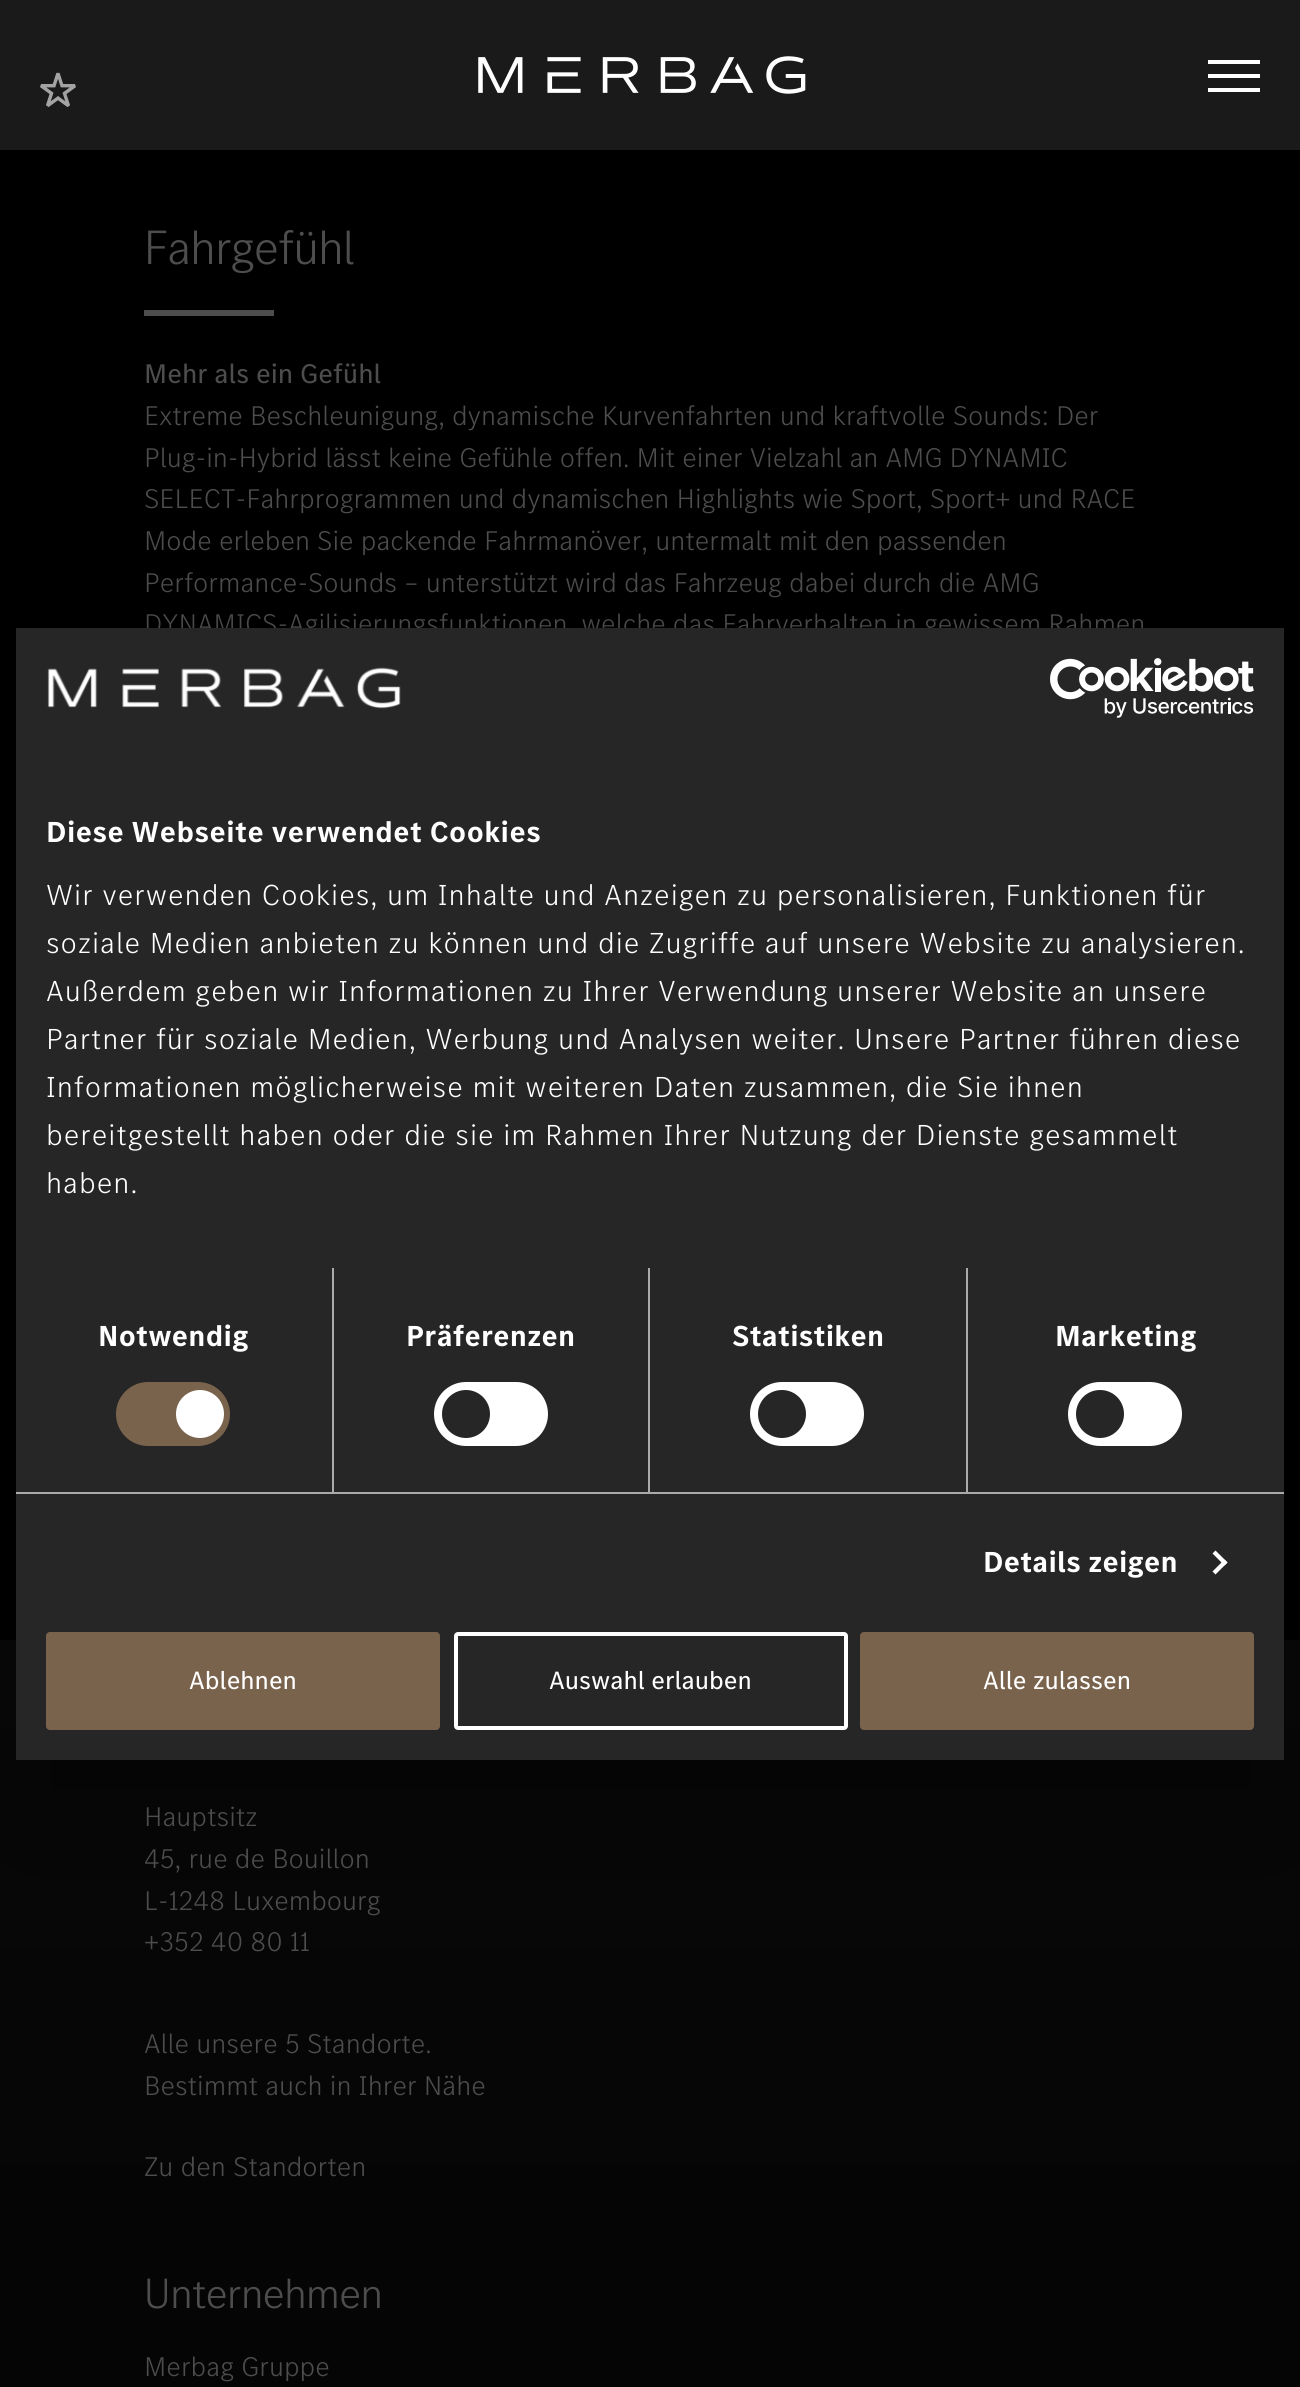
#include <cairo.h>
#include <math.h>
#include <stddef.h>


static void rgb(cairo_t *cr, int r, int g, int b)
{
	cairo_set_source_rgb(cr, r / 255.0, g / 255.0, b / 255.0);
}

static void face(cairo_t *cr, const char *family, double size, int italic, int bold)
{
	cairo_select_font_face(cr, family, italic ? CAIRO_FONT_SLANT_ITALIC : CAIRO_FONT_SLANT_NORMAL,
		bold ? CAIRO_FONT_WEIGHT_BOLD : CAIRO_FONT_WEIGHT_NORMAL);
	cairo_set_font_size(cr, size);
}

static void label(cairo_t *cr, double x, double y, const char *s)
{
	cairo_move_to(cr, x, y);
	cairo_show_text(cr, s);
}

static void tracked(cairo_t *cr, double x, double y, const char *s, double letter, double word)
{
	cairo_move_to(cr, x, y);
	while (*s) {
		char ch[5] = {0};
		int n = 0;
		do ch[n++] = *s++; while ((*s & 0xC0) == 0x80);
		cairo_show_text(cr, ch);
		cairo_rel_move_to(cr, letter + word * (*ch == ' '), 0);
	}
}

static void rect(cairo_t *cr, double x, double y, double w, double h)
{
	cairo_rectangle(cr, x, y, w, h);
	cairo_fill(cr);
}

static void rrect(cairo_t *cr, double x, double y, double w, double h, double r)
{
	cairo_new_sub_path(cr);
	cairo_arc(cr, x + w - r, y + h - r, r, 0, M_PI / 2);
	cairo_arc(cr, x + r, y + h - r, r, M_PI / 2, M_PI);
	cairo_arc(cr, x + r, y + r, r, M_PI, 1.5 * M_PI);
	cairo_arc(cr, x + w - r, y + r, r, 1.5 * M_PI, 2 * M_PI);
	cairo_close_path(cr);
}

static void soft_shadow(cairo_t *cr, double x, double y, double w, double h, double r, double blur, double alpha)
{
	cairo_push_group_with_content(cr, CAIRO_CONTENT_ALPHA);
	cairo_set_operator(cr, CAIRO_OPERATOR_SOURCE);
	for (int i = 15; i >= -15 && fmin(w, h) + blur * i / 3 > 0; i -= 2) {
		double e = blur * i / 6;
		cairo_set_source_rgba(cr, 0, 0, 0, alpha * erfc((i - 1) / 8.5) / 2);
		rrect(cr, x - e, y - e, w + 2 * e, h + 2 * e, fmax(0, fmin(r + e + blur * .6, fmin(w, h) / 2 + e)));
		cairo_fill(cr);
	}
	cairo_pattern_t *soft = cairo_pop_group(cr);
	cairo_mask(cr, soft);
	cairo_pattern_destroy(soft);
}

static void image(cairo_t *cr, const char *path, double x, double y, double w, double h)
{
	cairo_surface_t *image = cairo_image_surface_create_from_png(path);
	cairo_save(cr);
	cairo_set_source_surface(cr, image, x, y);
	cairo_rectangle(cr, x, y, w, h);
	cairo_fill(cr);
	cairo_restore(cr);
	cairo_surface_destroy(image);
}

static void draw(cairo_t *cr) {
	cairo_pattern_t *gradient;
	rgb(cr, 0, 0, 0);
	cairo_paint(cr);
	rgb(cr, 26, 26, 26);
	rect(cr, 0, 0, 1300, 150);
	image(cr, "image0.png", 40, 72, 36, 35);
	image(cr, "image1.png", 478, 56, 328, 38);
	rgb(cr, 255, 255, 255);
	rect(cr, 1208, 88, 52, 4);
	rect(cr, 1208, 60, 52, 4);
	rect(cr, 1208, 74, 52, 4);
	face(cr, "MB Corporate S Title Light", 50, 0, 0);
	rgb(cr, 77, 77, 77);
	label(cr, 144, 264, "Fahrgefühl");
	rect(cr, 144, 310, 130, 6);
	face(cr, "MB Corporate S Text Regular", 28, 0, 0);
	label(cr, 144, 383, "Mehr als ein Gefühl");
	face(cr, "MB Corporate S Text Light", 28, 0, 0);
	label(cr, 144, 425, "Extreme Beschleunigung, dynamische Kurvenfahrten und kraftvolle Sounds: Der");
	label(cr, 144, 467, "Plug-in-Hybrid lässt keine Gefühle offen. Mit einer Vielzahl an AMG DYNAMIC");
	label(cr, 144, 508, "SELECT-Fahrprogrammen und dynamischen Highlights wie Sport, Sport+ und RACE");
	label(cr, 144, 550, "Mode erleben Sie packende Fahrmanöver, untermalt mit den passenden");
	label(cr, 144, 592, "Performance-Sounds – unterstützt wird das Fahrzeug dabei durch die AMG");
	label(cr, 144, 633, "DYNAMICS-Agilisierungsfunktionen, welche das Fahrverhalten in gewissem Rahmen");
	gradient = cairo_pattern_create_linear(650, 1640, 650, 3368);
	cairo_pattern_add_color_stop_rgba(gradient, 0, 0.031, 0.031, 0.031, 1);
	cairo_pattern_add_color_stop_rgba(gradient, 1, 0, 0, 0, 1);
	cairo_set_source(cr, gradient);
	cairo_pattern_destroy(gradient);
	rect(cr, 0, 1640, 1300, 747);
	rgb(cr, 0, 0, 0);
	soft_shadow(cr, 16, 692, 1268, 1132, 0, 68, 0.3);
	rgb(cr, 38, 38, 38);
	rect(cr, 16, 628, 1268, 1132);
	image(cr, "image2.png", 47, 667, 354, 42);
	image(cr, "image3.png", 1050, 658, 204, 60);
	face(cr, "MB Corporate S Text", 30, 0, 1);
	rgb(cr, 255, 255, 255);
	tracked(cr, 46, 842, "Diese Webseite verwendet Cookies", 0.5, 0);
	face(cr, "MB Corporate S Text Light", 30, 0, 0);
	tracked(cr, 46, 905, "Wir verwenden Cookies, um Inhalte und Anzeigen zu personalisieren, Funktionen für", 1, 0);
	tracked(cr, 46, 953, "soziale Medien anbieten zu können und die Zugriffe auf unsere Website zu analysieren.", 1, 0);
	tracked(cr, 46, 1001, "Außerdem geben wir Informationen zu Ihrer Verwendung unserer Website an unsere", 1, 0);
	tracked(cr, 46, 1049, "Partner für soziale Medien, Werbung und Analysen weiter. Unsere Partner führen diese", 1, 0);
	tracked(cr, 46, 1097, "Informationen möglicherweise mit weiteren Daten zusammen, die Sie ihnen", 1, 0);
	tracked(cr, 46, 1145, "bereitgestellt haben oder die sie im Rahmen Ihrer Nutzung der Dienste gesammelt", 1, 0);
	tracked(cr, 46, 1193, "haben.", 1, 0);
	rgb(cr, 170, 170, 170);
	rect(cr, 16, 1492, 1268, 2);
	rect(cr, 332, 1268, 2, 224);
	face(cr, "MB Corporate S Text", 30, 0, 1);
	rgb(cr, 255, 255, 255);
	tracked(cr, 98, 1346, "Notwendig", 0.25, 0);
	rgb(cr, 122, 99, 77);
	rrect(cr, 116, 1382, 114, 64, 32);
	cairo_fill(cr);
	rgb(cr, 255, 255, 255);
	cairo_arc(cr, 200, 1414, 24, 0, 2 * M_PI);
	cairo_fill(cr);
	rgb(cr, 170, 170, 170);
	rect(cr, 648, 1268, 2, 224);
	rgb(cr, 255, 255, 255);
	tracked(cr, 406, 1346, "Präferenzen", 0.25, 0);
	rrect(cr, 434, 1382, 114, 64, 32);
	cairo_fill(cr);
	rgb(cr, 38, 38, 38);
	cairo_arc(cr, 466, 1414, 24, 0, 2 * M_PI);
	cairo_fill(cr);
	rgb(cr, 170, 170, 170);
	rect(cr, 966, 1268, 2, 224);
	rgb(cr, 255, 255, 255);
	tracked(cr, 732, 1346, "Statistiken", 0.25, 0);
	rrect(cr, 750, 1382, 114, 64, 32);
	cairo_fill(cr);
	rgb(cr, 38, 38, 38);
	cairo_arc(cr, 782, 1414, 24, 0, 2 * M_PI);
	cairo_fill(cr);
	rgb(cr, 255, 255, 255);
	tracked(cr, 1055, 1346, "Marketing", 0.25, 0);
	rrect(cr, 1068, 1382, 114, 64, 32);
	cairo_fill(cr);
	rgb(cr, 38, 38, 38);
	cairo_arc(cr, 1100, 1414, 24, 0, 2 * M_PI);
	cairo_fill(cr);
	rgb(cr, 255, 255, 255);
	tracked(cr, 983, 1572, "Details zeigen", 0.25, 0);
	cairo_new_path(cr);
	cairo_move_to(cr, 1215.5, 1550.5);
	cairo_line_to(cr, 1227.5, 1562.5);
	cairo_line_to(cr, 1224.5, 1565.5);
	cairo_line_to(cr, 1212.5, 1553.5);
	cairo_close_path(cr);
	cairo_fill(cr);
	cairo_new_path(cr);
	cairo_move_to(cr, 1224.5, 1559.5);
	cairo_line_to(cr, 1227.5, 1562.5);
	cairo_line_to(cr, 1215.5, 1574.5);
	cairo_line_to(cr, 1212.5, 1571.5);
	cairo_close_path(cr);
	cairo_fill(cr);
	rgb(cr, 122, 99, 77);
	rrect(cr, 46, 1632, 394, 98, 4);
	cairo_fill(cr);
	face(cr, "MB Corporate S Text Regular", 26, 0, 0);
	rgb(cr, 255, 255, 255);
	label(cr, 189, 1689, "Ablehnen");
	rrect(cr, 456, 1634, 390, 94, 2);
	cairo_set_line_width(cr, 4);
	cairo_stroke(cr);
	label(cr, 549, 1689, "Auswahl erlauben");
	rgb(cr, 122, 99, 77);
	rrect(cr, 860, 1632, 394, 98, 4);
	cairo_fill(cr);
	rgb(cr, 255, 255, 255);
	label(cr, 983, 1689, "Alle zulassen");
	face(cr, "MB Corporate S Text Light", 28, 0, 0);
	rgb(cr, 77, 77, 77);
	label(cr, 144, 1826, "Hauptsitz");
	label(cr, 144, 1868, "45, rue de Bouillon");
	label(cr, 144, 1910, "L-1248 Luxembourg");
	label(cr, 144, 1951, "+352 40 80 11");
	label(cr, 144, 2053, "Alle unsere 5 Standorte.");
	label(cr, 144, 2095, "Bestimmt auch in Ihrer Nähe");
	label(cr, 144, 2176, "Zu den Standorten");
	face(cr, "MB Corporate S Title Light", 44, 0, 0);
	label(cr, 144, 2308, "Unternehmen");
	face(cr, "MB Corporate S Text Light", 28, 0, 0);
	label(cr, 144, 2376, "Merbag Gruppe");
}

int main(void) {
	cairo_surface_t *surface = cairo_image_surface_create(CAIRO_FORMAT_RGB24, 1300, 2387);
	cairo_t *cr = cairo_create(surface);
	cairo_font_options_t *options = cairo_font_options_create();
	cairo_font_options_set_hint_metrics(options, CAIRO_HINT_METRICS_OFF);
	cairo_font_options_set_hint_style(options, CAIRO_HINT_STYLE_NONE);
	cairo_set_font_options(cr, options);
	cairo_set_miter_limit(cr, 4);
	draw(cr);
	cairo_surface_write_to_png(surface, "render.png");
	cairo_font_options_destroy(options);
	cairo_destroy(cr);
	cairo_surface_destroy(surface);
	return 0;
}
